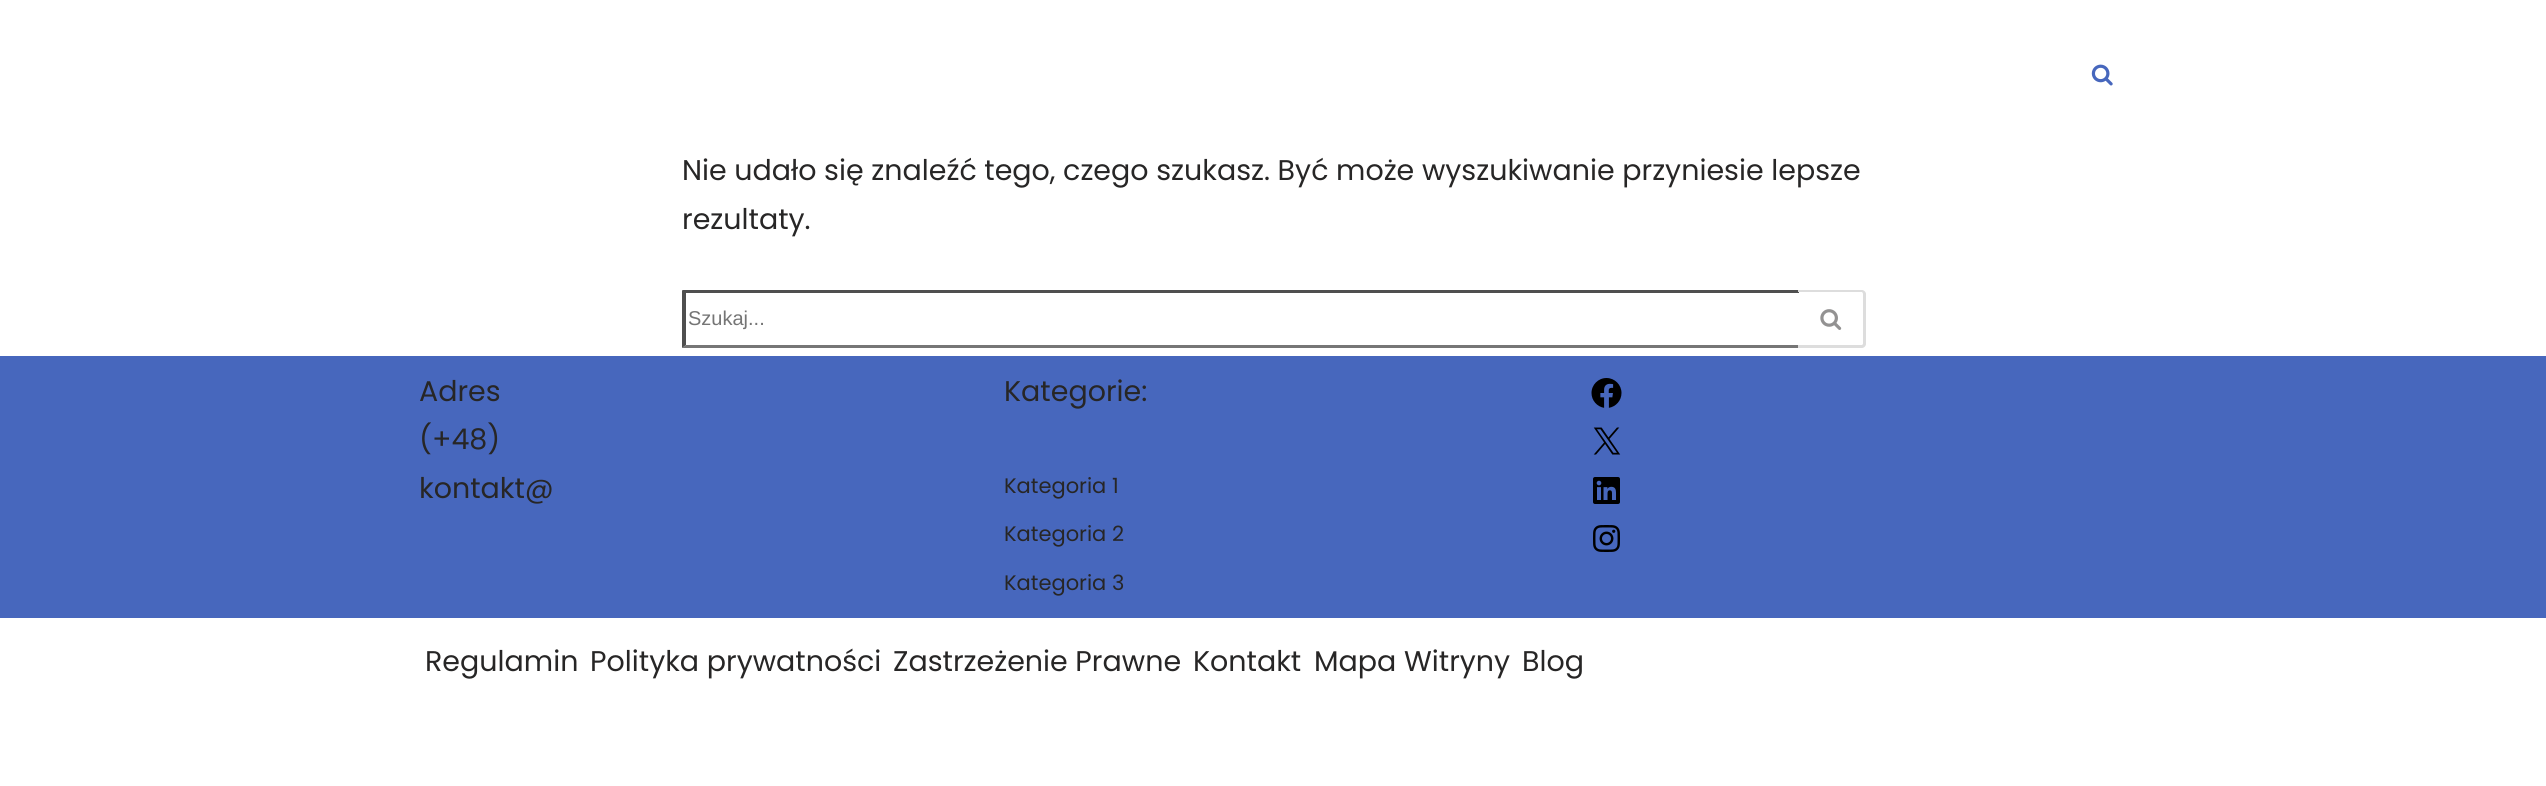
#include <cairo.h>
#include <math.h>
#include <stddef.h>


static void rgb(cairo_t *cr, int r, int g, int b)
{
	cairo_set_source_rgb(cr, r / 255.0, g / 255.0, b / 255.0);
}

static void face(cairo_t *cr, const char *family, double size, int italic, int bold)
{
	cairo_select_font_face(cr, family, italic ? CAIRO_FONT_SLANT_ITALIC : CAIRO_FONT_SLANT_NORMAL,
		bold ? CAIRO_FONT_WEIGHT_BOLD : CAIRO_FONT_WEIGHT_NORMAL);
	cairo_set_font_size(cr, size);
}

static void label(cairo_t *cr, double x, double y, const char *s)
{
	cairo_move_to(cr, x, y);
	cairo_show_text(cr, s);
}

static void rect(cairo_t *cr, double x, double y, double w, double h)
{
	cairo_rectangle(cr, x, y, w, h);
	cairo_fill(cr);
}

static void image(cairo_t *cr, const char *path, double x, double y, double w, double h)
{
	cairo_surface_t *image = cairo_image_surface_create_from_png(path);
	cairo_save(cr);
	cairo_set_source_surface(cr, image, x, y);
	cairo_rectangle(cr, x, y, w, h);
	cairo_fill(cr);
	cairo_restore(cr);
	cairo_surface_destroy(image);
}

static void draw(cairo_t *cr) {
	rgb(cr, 255, 255, 255);
	cairo_paint(cr);
	image(cr, "image0.png", 2091, 64, 22, 22);
	face(cr, "Poppins", 28.5, 0, 0);
	rgb(cr, 39, 38, 38);
	label(cr, 682, 180, "Nie udało się znaleźć tego, czego szukasz. Być może wyszukiwanie przyniesie lepsze");
	label(cr, 682, 229, "rezultaty.");
	rgb(cr, 79, 79, 79);
	rect(cr, 683, 290, 1116, 3);
	rgb(cr, 118, 118, 118);
	cairo_new_path(cr);
	cairo_move_to(cr, 1798, 348);
	cairo_line_to(cr, 682, 348);
	cairo_line_to(cr, 686, 345);
	cairo_line_to(cr, 1798, 345);
	cairo_close_path(cr);
	cairo_fill(cr);
	rgb(cr, 79, 79, 79);
	cairo_new_path(cr);
	cairo_move_to(cr, 682, 348);
	cairo_line_to(cr, 682, 290);
	cairo_line_to(cr, 686, 292);
	cairo_line_to(cr, 686, 345);
	cairo_close_path(cr);
	cairo_fill(cr);
	face(cr, "Liberation Sans", 20, 0, 0);
	rgb(cr, 117, 117, 117);
	label(cr, 688, 325, "Szukaj...");
	rgb(cr, 221, 221, 221);
	cairo_set_fill_rule(cr, CAIRO_FILL_RULE_EVEN_ODD);
	cairo_new_path(cr);
	cairo_move_to(cr, 1798, 290);
	cairo_line_to(cr, 1862, 290);
	cairo_curve_to(cr, 1864, 290, 1866, 292, 1866, 294);
	cairo_line_to(cr, 1866, 344);
	cairo_curve_to(cr, 1866, 346, 1864, 348, 1862, 348);
	cairo_line_to(cr, 1798, 348);
	cairo_close_path(cr);
	cairo_move_to(cr, 1798, 292);
	cairo_line_to(cr, 1862, 292);
	cairo_curve_to(cr, 1862, 292, 1863, 293, 1863, 294);
	cairo_line_to(cr, 1863, 344);
	cairo_curve_to(cr, 1863, 344, 1862, 345, 1862, 345);
	cairo_line_to(cr, 1798, 345);
	cairo_close_path(cr);
	cairo_fill(cr);
	image(cr, "image1.png", 1820, 309, 22, 21);
	rgb(cr, 71, 103, 189);
	rect(cr, 0, 356, 2546, 262);
	face(cr, "Poppins", 28.5, 0, 0);
	rgb(cr, 39, 38, 38);
	label(cr, 419, 401, "Adres");
	label(cr, 419, 449, "(+48)");
	label(cr, 419, 498, "kontakt@");
	label(cr, 1004, 401, "Kategorie:");
	face(cr, "Poppins", 21, 0, 0);
	label(cr, 1004, 493, "Kategoria 1");
	label(cr, 1004, 541, "Kategoria 2");
	label(cr, 1004, 590, "Kategoria 3");
	image(cr, "image2.png", 1591, 378, 31, 30);
	image(cr, "image3.png", 1593, 427, 28, 28);
	image(cr, "image4.png", 1593, 477, 27, 27);
	image(cr, "image5.png", 1593, 525, 27, 27);
	face(cr, "Poppins", 28.5, 0, 0);
	label(cr, 425, 671, "Regulamin");
	label(cr, 590, 671, "Polityka prywatności");
	label(cr, 893, 671, "Zastrzeżenie Prawne");
	label(cr, 1193, 671, "Kontakt");
	label(cr, 1314, 671, "Mapa Witryny");
	label(cr, 1522, 671, "Blog");
}

int main(void) {
	cairo_surface_t *surface = cairo_image_surface_create(CAIRO_FORMAT_RGB24, 2546, 786);
	cairo_t *cr = cairo_create(surface);
	cairo_font_options_t *options = cairo_font_options_create();
	cairo_font_options_set_hint_metrics(options, CAIRO_HINT_METRICS_OFF);
	cairo_font_options_set_hint_style(options, CAIRO_HINT_STYLE_NONE);
	cairo_set_font_options(cr, options);
	cairo_set_miter_limit(cr, 4);
	draw(cr);
	cairo_surface_write_to_png(surface, "render.png");
	cairo_font_options_destroy(options);
	cairo_destroy(cr);
	cairo_surface_destroy(surface);
	return 0;
}
